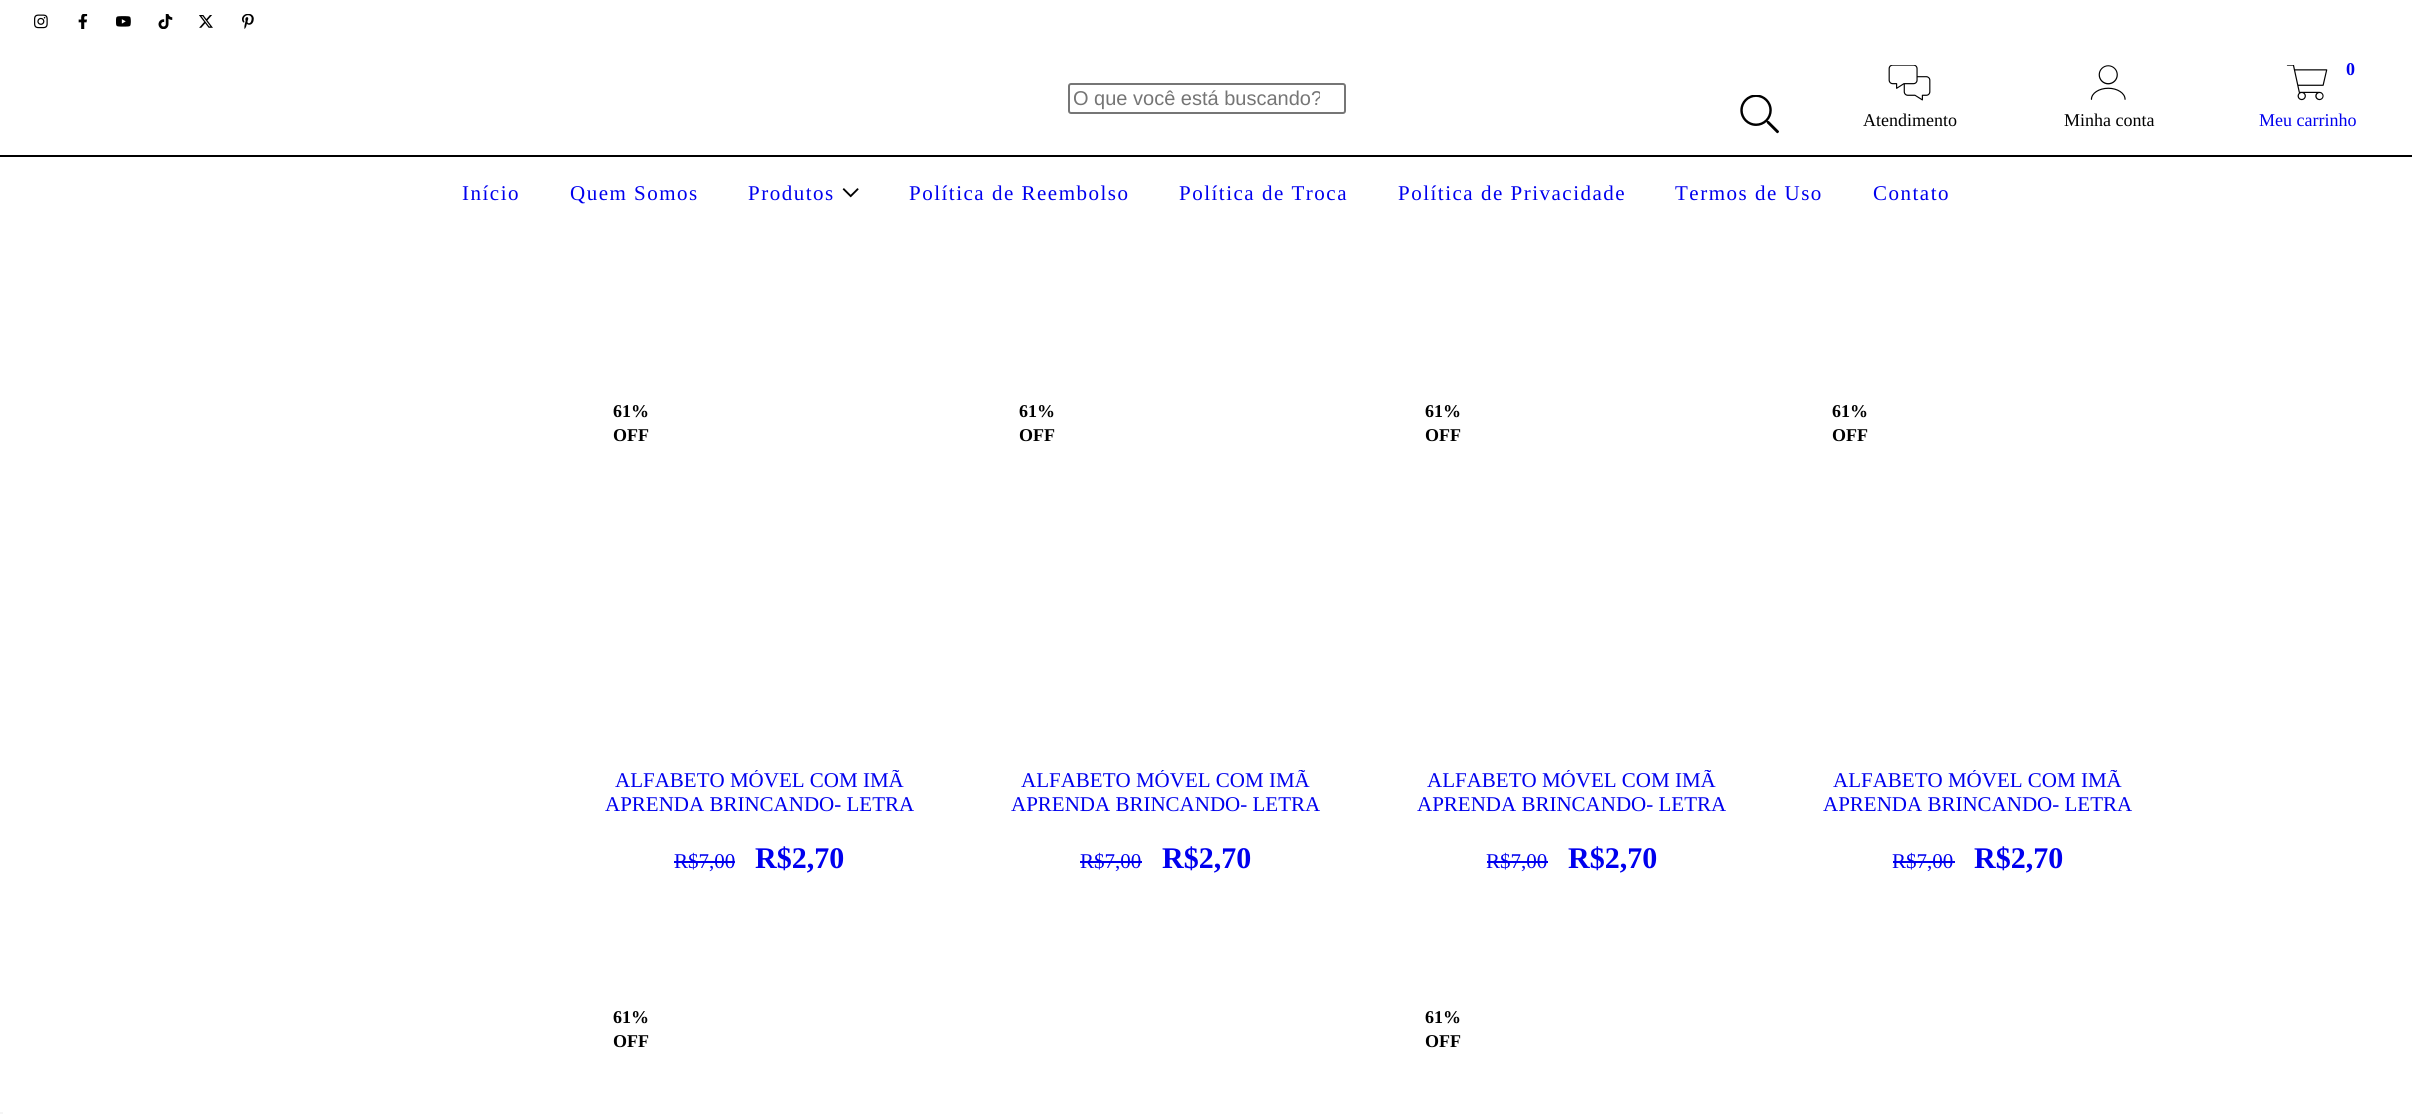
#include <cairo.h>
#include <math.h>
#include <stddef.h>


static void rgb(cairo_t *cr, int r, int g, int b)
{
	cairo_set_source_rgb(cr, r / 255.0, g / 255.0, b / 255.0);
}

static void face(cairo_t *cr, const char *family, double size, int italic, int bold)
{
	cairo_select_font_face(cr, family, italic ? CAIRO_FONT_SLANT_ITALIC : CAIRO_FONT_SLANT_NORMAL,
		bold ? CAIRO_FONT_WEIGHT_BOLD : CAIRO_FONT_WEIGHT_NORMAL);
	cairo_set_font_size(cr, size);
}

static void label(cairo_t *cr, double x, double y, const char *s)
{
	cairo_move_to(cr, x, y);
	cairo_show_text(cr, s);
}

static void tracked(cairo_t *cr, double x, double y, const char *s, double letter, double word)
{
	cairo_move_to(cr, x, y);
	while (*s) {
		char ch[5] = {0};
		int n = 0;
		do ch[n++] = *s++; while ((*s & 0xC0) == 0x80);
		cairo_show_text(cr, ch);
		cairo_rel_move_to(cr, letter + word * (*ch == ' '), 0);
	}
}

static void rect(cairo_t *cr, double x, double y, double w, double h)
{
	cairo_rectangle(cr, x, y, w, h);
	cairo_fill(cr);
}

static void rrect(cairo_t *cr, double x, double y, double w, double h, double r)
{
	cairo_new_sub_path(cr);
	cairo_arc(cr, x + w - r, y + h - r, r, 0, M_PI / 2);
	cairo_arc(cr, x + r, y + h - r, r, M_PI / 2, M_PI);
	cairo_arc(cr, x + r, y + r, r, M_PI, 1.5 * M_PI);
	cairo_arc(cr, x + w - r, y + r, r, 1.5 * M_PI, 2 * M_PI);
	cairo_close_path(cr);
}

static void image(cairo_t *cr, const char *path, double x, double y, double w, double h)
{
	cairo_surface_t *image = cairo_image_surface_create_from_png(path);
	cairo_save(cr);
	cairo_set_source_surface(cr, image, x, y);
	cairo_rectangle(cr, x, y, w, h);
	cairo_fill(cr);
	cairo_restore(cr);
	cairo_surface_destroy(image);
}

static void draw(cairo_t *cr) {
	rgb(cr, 255, 255, 255);
	cairo_paint(cr);
	image(cr, "image0.png", 34, 14, 14, 15);
	image(cr, "image1.png", 78, 14, 10, 15);
	image(cr, "image2.png", 116, 16, 15, 11);
	image(cr, "image3.png", 158, 14, 15, 15);
	image(cr, "image4.png", 199, 15, 14, 13);
	image(cr, "image5.png", 242, 14, 12, 15);
	rrect(cr, 1069, 84, 276, 29, 2);
	rgb(cr, 118, 118, 118);
	cairo_stroke(cr);
	cairo_save(cr);
	cairo_rectangle(cr, 1074, 87, 246, 23);
	cairo_clip(cr);
	face(cr, "Liberation Sans", 20, 0, 0);
	rgb(cr, 117, 117, 117);
	label(cr, 1073, 105, "O que você está buscando?");
	cairo_restore(cr);
	image(cr, "image6.png", 1740, 95, 39, 39);
	image(cr, "image7.png", 1888, 65, 43, 36);
	face(cr, "Liberation Serif", 18, 0, 0);
	rgb(cr, 0, 0, 0);
	label(cr, 1863, 126, "Atendimento");
	image(cr, "image8.png", 2090, 65, 36, 35);
	label(cr, 2064, 126, "Minha conta");
	image(cr, "image9.png", 2286, 65, 42, 36);
	face(cr, "Liberation Serif", 18, 0, 1);
	rgb(cr, 0, 0, 238);
	label(cr, 2346, 75, "0");
	face(cr, "Liberation Serif", 18, 0, 0);
	label(cr, 2259, 126, "Meu carrinho");
	rgb(cr, 0, 0, 0);
	rect(cr, 0, 155, 2412, 2);
	face(cr, "Liberation Serif", 21, 0, 0);
	rgb(cr, 0, 0, 238);
	tracked(cr, 462, 200, "Início", 1.5, 0);
	tracked(cr, 570, 200, "Quem Somos", 1.5, 0);
	tracked(cr, 748, 200, "Produtos", 1.5, 0);
	image(cr, "image10.png", 842, 188, 17, 10);
	tracked(cr, 909, 200, "Política de Reembolso", 1.5, 0);
	tracked(cr, 1179, 200, "Política de Troca", 1.5, 0);
	tracked(cr, 1398, 200, "Política de Privacidade", 1.5, 0);
	tracked(cr, 1675, 200, "Termos de Uso", 1.5, 0);
	tracked(cr, 1873, 200, "Contato", 1.5, 0);
	face(cr, "Liberation Serif", 18, 0, 1);
	rgb(cr, 0, 0, 0);
	label(cr, 613, 417, "61%");
	label(cr, 613, 441, "OFF");
	cairo_save(cr);
	cairo_rectangle(cr, 603, 770, 312, 48);
	cairo_clip(cr);
	face(cr, "Liberation Serif", 21, 0, 0);
	rgb(cr, 0, 0, 238);
	label(cr, 615, 787, "ALFABETO MÓVEL COM IMÃ");
	cairo_restore(cr);
	face(cr, "Liberation Serif", 21, 0, 0);
	rgb(cr, 0, 0, 238);
	label(cr, 605, 811, "APRENDA BRINCANDO- LETRA");
	label(cr, 674, 868, "R$7,00");
	rect(cr, 674, 861, 61, 2);
	face(cr, "Liberation Serif", 30, 0, 1);
	label(cr, 755, 868, "R$2,70");
	face(cr, "Liberation Serif", 18, 0, 1);
	rgb(cr, 0, 0, 0);
	label(cr, 1019, 417, "61%");
	label(cr, 1019, 441, "OFF");
	cairo_save(cr);
	cairo_rectangle(cr, 1008, 770, 314, 48);
	cairo_clip(cr);
	face(cr, "Liberation Serif", 21, 0, 0);
	rgb(cr, 0, 0, 238);
	label(cr, 1021, 787, "ALFABETO MÓVEL COM IMÃ");
	cairo_restore(cr);
	face(cr, "Liberation Serif", 21, 0, 0);
	rgb(cr, 0, 0, 238);
	label(cr, 1011, 811, "APRENDA BRINCANDO- LETRA");
	label(cr, 1080, 868, "R$7,00");
	rect(cr, 1080, 861, 62, 2);
	face(cr, "Liberation Serif", 30, 0, 1);
	label(cr, 1162, 868, "R$2,70");
	face(cr, "Liberation Serif", 18, 0, 1);
	rgb(cr, 0, 0, 0);
	label(cr, 1425, 417, "61%");
	label(cr, 1425, 441, "OFF");
	cairo_save(cr);
	cairo_rectangle(cr, 1415, 770, 313, 48);
	cairo_clip(cr);
	face(cr, "Liberation Serif", 21, 0, 0);
	rgb(cr, 0, 0, 238);
	label(cr, 1427, 787, "ALFABETO MÓVEL COM IMÃ");
	cairo_restore(cr);
	face(cr, "Liberation Serif", 21, 0, 0);
	rgb(cr, 0, 0, 238);
	label(cr, 1417, 811, "APRENDA BRINCANDO- LETRA");
	label(cr, 1486, 868, "R$7,00");
	rect(cr, 1487, 861, 61, 2);
	face(cr, "Liberation Serif", 30, 0, 1);
	label(cr, 1568, 868, "R$2,70");
	face(cr, "Liberation Serif", 18, 0, 1);
	rgb(cr, 0, 0, 0);
	label(cr, 1832, 417, "61%");
	label(cr, 1832, 441, "OFF");
	cairo_save(cr);
	cairo_rectangle(cr, 1821, 770, 314, 48);
	cairo_clip(cr);
	face(cr, "Liberation Serif", 21, 0, 0);
	rgb(cr, 0, 0, 238);
	label(cr, 1833, 787, "ALFABETO MÓVEL COM IMÃ");
	cairo_restore(cr);
	face(cr, "Liberation Serif", 21, 0, 0);
	rgb(cr, 0, 0, 238);
	label(cr, 1823, 811, "APRENDA BRINCANDO- LETRA");
	label(cr, 1892, 868, "R$7,00");
	rect(cr, 1893, 861, 62, 2);
	face(cr, "Liberation Serif", 30, 0, 1);
	label(cr, 1974, 868, "R$2,70");
	face(cr, "Liberation Serif", 18, 0, 1);
	rgb(cr, 0, 0, 0);
	label(cr, 613, 1023, "61%");
	label(cr, 613, 1047, "OFF");
	label(cr, 1425, 1023, "61%");
	label(cr, 1425, 1047, "OFF");
	rgb(cr, 245, 245, 245);
	rect(cr, 0, 1112, 3, 2);
}

int main(void) {
	cairo_surface_t *surface = cairo_image_surface_create(CAIRO_FORMAT_RGB24, 2412, 1114);
	cairo_t *cr = cairo_create(surface);
	cairo_font_options_t *options = cairo_font_options_create();
	cairo_font_options_set_hint_metrics(options, CAIRO_HINT_METRICS_OFF);
	cairo_font_options_set_hint_style(options, CAIRO_HINT_STYLE_NONE);
	cairo_set_font_options(cr, options);
	cairo_set_miter_limit(cr, 4);
	draw(cr);
	cairo_surface_write_to_png(surface, "render.png");
	cairo_font_options_destroy(options);
	cairo_destroy(cr);
	cairo_surface_destroy(surface);
	return 0;
}
